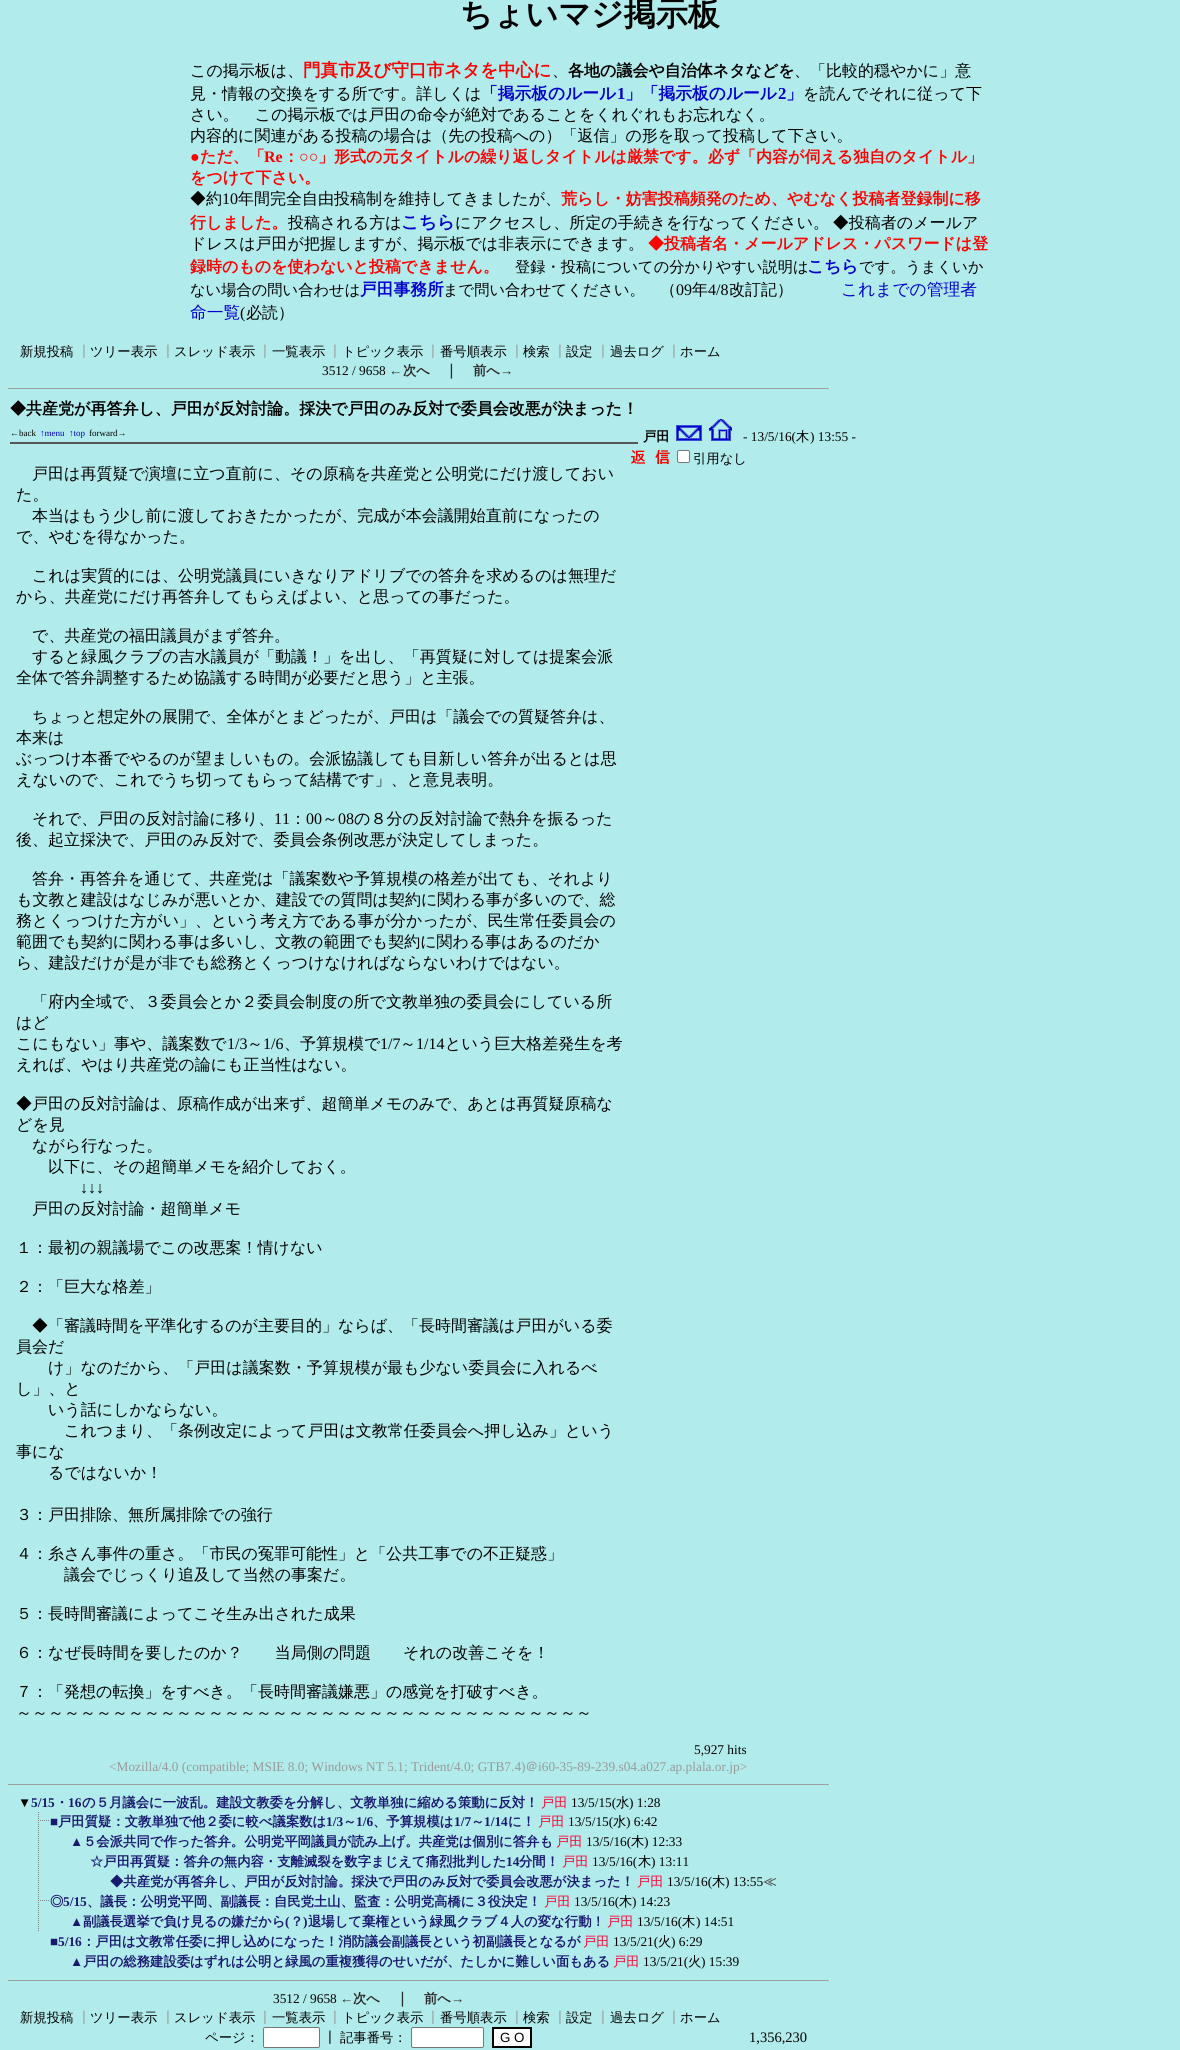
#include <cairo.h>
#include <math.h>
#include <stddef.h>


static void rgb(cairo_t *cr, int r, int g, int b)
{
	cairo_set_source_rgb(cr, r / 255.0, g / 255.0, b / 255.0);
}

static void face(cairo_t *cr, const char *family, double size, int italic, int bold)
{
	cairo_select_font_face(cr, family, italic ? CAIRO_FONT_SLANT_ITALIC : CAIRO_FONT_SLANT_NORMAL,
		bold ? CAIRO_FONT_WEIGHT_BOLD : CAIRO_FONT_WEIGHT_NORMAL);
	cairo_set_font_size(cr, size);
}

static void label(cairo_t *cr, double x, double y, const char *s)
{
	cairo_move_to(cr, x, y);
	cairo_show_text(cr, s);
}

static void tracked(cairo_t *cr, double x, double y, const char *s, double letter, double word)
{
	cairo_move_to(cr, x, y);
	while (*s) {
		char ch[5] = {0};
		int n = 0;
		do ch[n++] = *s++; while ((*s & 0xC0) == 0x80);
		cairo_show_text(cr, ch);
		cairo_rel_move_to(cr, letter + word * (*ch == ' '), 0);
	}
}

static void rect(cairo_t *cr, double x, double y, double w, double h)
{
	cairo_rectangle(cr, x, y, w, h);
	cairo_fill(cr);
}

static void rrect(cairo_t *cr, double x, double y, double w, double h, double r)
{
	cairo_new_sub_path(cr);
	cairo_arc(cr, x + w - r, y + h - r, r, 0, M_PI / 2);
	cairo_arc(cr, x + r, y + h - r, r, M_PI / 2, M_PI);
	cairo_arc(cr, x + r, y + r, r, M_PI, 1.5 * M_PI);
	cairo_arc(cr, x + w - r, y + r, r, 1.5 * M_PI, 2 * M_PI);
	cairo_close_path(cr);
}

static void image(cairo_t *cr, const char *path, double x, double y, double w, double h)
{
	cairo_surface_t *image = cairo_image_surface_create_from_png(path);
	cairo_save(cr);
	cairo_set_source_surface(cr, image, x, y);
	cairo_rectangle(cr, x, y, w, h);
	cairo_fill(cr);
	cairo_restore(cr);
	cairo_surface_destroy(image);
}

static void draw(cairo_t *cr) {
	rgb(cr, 178, 235, 235);
	cairo_paint(cr);
	face(cr, "WenQuanYi Zen Hei", 32, 0, 1);
	rgb(cr, 0, 0, 0);
	label(cr, 460, 25, "ちょいマジ掲示板");
	face(cr, "WenQuanYi Zen Hei Medium", 16, 0, 0);
	label(cr, 190, 76, "この掲示板は、");
	face(cr, "WenQuanYi Zen Hei", 17.6, 0, 1);
	rgb(cr, 255, 0, 0);
	label(cr, 303, 76, "門真市及び守口市ネタを中心に");
	face(cr, "WenQuanYi Zen Hei Medium", 16, 0, 0);
	rgb(cr, 0, 0, 0);
	label(cr, 552, 76, "、");
	face(cr, "WenQuanYi Zen Hei", 16, 0, 1);
	label(cr, 568, 76, "各地の議会や自治体ネタなどを");
	face(cr, "WenQuanYi Zen Hei Medium", 16, 0, 0);
	label(cr, 794, 76, "、「比較的穏やかに」意");
	label(cr, 190, 99, "見・情報の交換をする所です。詳しくは");
	face(cr, "WenQuanYi Zen Hei", 16.75, 0, 1);
	rgb(cr, 0, 0, 205);
	label(cr, 481, 99, "「掲示板のルール");
	face(cr, "Liberation Serif", 16.75, 0, 1);
	label(cr, 617, 99, "1");
	face(cr, "WenQuanYi Zen Hei", 16.75, 0, 1);
	label(cr, 625, 99, "」「掲示板のルール");
	face(cr, "Liberation Serif", 16.75, 0, 1);
	label(cr, 778, 99, "2");
	face(cr, "WenQuanYi Zen Hei", 16.75, 0, 1);
	label(cr, 786, 99, "」");
	face(cr, "WenQuanYi Zen Hei Medium", 16, 0, 0);
	rgb(cr, 0, 0, 0);
	label(cr, 803, 99, "を読んでそれに従って下");
	label(cr, 190, 120, "さい。　この掲示板では戸田の命令が絶対であることをくれぐれもお忘れなく。");
	label(cr, 190, 141, "内容的に関連がある投稿の場合は（先の投稿への）「返信」の形を取って投稿して下さい。");
	face(cr, "Liberation Serif", 16, 0, 1);
	rgb(cr, 255, 0, 0);
	label(cr, 190, 162, "●");
	face(cr, "WenQuanYi Zen Hei", 16, 0, 1);
	label(cr, 200, 162, "ただ、「");
	face(cr, "Liberation Serif", 16, 0, 1);
	label(cr, 264, 162, "Re");
	face(cr, "WenQuanYi Zen Hei", 16, 0, 1);
	label(cr, 283, 162, "：");
	face(cr, "Liberation Serif", 16, 0, 1);
	label(cr, 299, 162, "○○");
	face(cr, "WenQuanYi Zen Hei", 16, 0, 1);
	label(cr, 318, 162, "」形式の元タイトルの繰り返しタイトルは厳禁です。必ず「内容が伺える独自のタイトル」");
	label(cr, 190, 183, "をつけて下さい。");
	face(cr, "WenQuanYi Zen Hei Medium", 16, 0, 0);
	rgb(cr, 0, 0, 0);
	label(cr, 190, 204, "◆約");
	face(cr, "Liberation Serif", 16, 0, 0);
	label(cr, 222, 204, "10");
	face(cr, "WenQuanYi Zen Hei Medium", 16, 0, 0);
	label(cr, 238, 204, "年間完全自由投稿制を維持してきましたが、");
	face(cr, "WenQuanYi Zen Hei", 16, 0, 1);
	rgb(cr, 255, 0, 0);
	label(cr, 561, 204, "荒らし・妨害投稿頻発のため、やむなく投稿者登録制に移");
	label(cr, 190, 228, "行しました。");
	face(cr, "WenQuanYi Zen Hei Medium", 16, 0, 0);
	rgb(cr, 0, 0, 0);
	label(cr, 288, 228, "投稿される方は");
	face(cr, "WenQuanYi Zen Hei", 17.6, 0, 1);
	rgb(cr, 0, 0, 205);
	label(cr, 401, 228, "こちら");
	face(cr, "WenQuanYi Zen Hei Medium", 16, 0, 0);
	rgb(cr, 0, 0, 0);
	tracked(cr, 455, 228, "にアクセスし、所定の手続きを行なってください。 ◆投稿者のメールア", 0, -1);
	label(cr, 190, 249, "ドレスは戸田が把握しますが、掲示板では非表示にできます。");
	face(cr, "WenQuanYi Zen Hei", 16, 0, 1);
	rgb(cr, 255, 0, 0);
	label(cr, 648, 249, "◆投稿者名・メールアドレス・パスワードは登");
	label(cr, 190, 272, "録時のものを使わないと投稿できません。");
	face(cr, "WenQuanYi Zen Hei Medium", 15.25, 0, 0);
	rgb(cr, 0, 0, 0);
	label(cr, 515, 272, "登録・投稿についての分かりやすい説明は");
	face(cr, "WenQuanYi Zen Hei", 16.75, 0, 1);
	rgb(cr, 0, 0, 205);
	label(cr, 807, 272, "こちら");
	face(cr, "WenQuanYi Zen Hei Medium", 15.25, 0, 0);
	rgb(cr, 0, 0, 0);
	label(cr, 859, 272, "です。うまくいか");
	label(cr, 190, 295, "ない場合の問い合わせは");
	face(cr, "WenQuanYi Zen Hei", 16.75, 0, 1);
	rgb(cr, 0, 0, 205);
	label(cr, 360, 295, "戸田事務所");
	face(cr, "WenQuanYi Zen Hei Medium", 15.25, 0, 0);
	rgb(cr, 0, 0, 0);
	label(cr, 443, 295, "まで問い合わせてください。");
	face(cr, "WenQuanYi Zen Hei Medium", 16, 0, 0);
	label(cr, 660, 295, "（");
	face(cr, "Liberation Serif", 16, 0, 0);
	label(cr, 676, 295, "09");
	face(cr, "WenQuanYi Zen Hei Medium", 16, 0, 0);
	label(cr, 692, 295, "年");
	face(cr, "Liberation Serif", 16, 0, 0);
	label(cr, 708, 295, "4/8");
	face(cr, "WenQuanYi Zen Hei Medium", 16, 0, 0);
	label(cr, 729, 295, "改訂記）");
	face(cr, "WenQuanYi Zen Hei Medium", 16.75, 0, 0);
	rgb(cr, 0, 0, 205);
	label(cr, 841, 295, "これまでの管理者");
	label(cr, 190, 318, "命一覧");
	face(cr, "Liberation Serif", 16, 0, 0);
	rgb(cr, 0, 0, 0);
	label(cr, 240, 318, "(");
	face(cr, "WenQuanYi Zen Hei Medium", 16, 0, 0);
	label(cr, 246, 318, "必読）");
	face(cr, "WenQuanYi Zen Hei Medium", 13.35, 0, 0);
	label(cr, 20, 356, "新規投稿");
	rgb(cr, 153, 153, 153);
	label(cr, 77, 356, "┃");
	rgb(cr, 0, 0, 0);
	label(cr, 90, 356, "ツリー表示");
	rgb(cr, 153, 153, 153);
	label(cr, 161, 356, "┃");
	rgb(cr, 0, 0, 0);
	label(cr, 174, 356, "スレッド表示");
	rgb(cr, 153, 153, 153);
	label(cr, 258, 356, "┃");
	rgb(cr, 0, 0, 0);
	label(cr, 272, 356, "一覧表示");
	rgb(cr, 153, 153, 153);
	label(cr, 328, 356, "┃");
	rgb(cr, 0, 0, 0);
	label(cr, 342, 356, "トピック表示");
	rgb(cr, 153, 153, 153);
	label(cr, 426, 356, "┃");
	rgb(cr, 0, 0, 0);
	label(cr, 440, 356, "番号順表示");
	rgb(cr, 153, 153, 153);
	label(cr, 510, 356, "┃");
	rgb(cr, 0, 0, 0);
	label(cr, 523, 356, "検索");
	rgb(cr, 153, 153, 153);
	label(cr, 553, 356, "┃");
	rgb(cr, 0, 0, 0);
	label(cr, 566, 356, "設定");
	rgb(cr, 153, 153, 153);
	label(cr, 596, 356, "┃");
	rgb(cr, 0, 0, 0);
	label(cr, 610, 356, "過去ログ");
	rgb(cr, 153, 153, 153);
	label(cr, 667, 356, "┃");
	rgb(cr, 0, 0, 0);
	label(cr, 680, 356, "ホーム");
	face(cr, "Liberation Serif", 13.35, 0, 0);
	label(cr, 322, 375, "3512 / 9658");
	face(cr, "Liberation Serif", 13.35, 0, 1);
	rgb(cr, 42, 42, 42);
	label(cr, 389, 375, "←");
	face(cr, "WenQuanYi Zen Hei", 13.35, 0, 1);
	label(cr, 403, 375, "次へ");
	face(cr, "WenQuanYi Zen Hei", 14.5, 0, 1);
	label(cr, 444, 375, "｜");
	face(cr, "WenQuanYi Zen Hei", 13.35, 0, 1);
	label(cr, 473, 375, "前へ");
	face(cr, "Liberation Serif", 13.35, 0, 1);
	label(cr, 500, 375, "→");
	rgb(cr, 159, 159, 159);
	rect(cr, 8, 388, 822, 1);
	rgb(cr, 238, 238, 238);
	rect(cr, 829, 388, 1, 1);
	face(cr, "WenQuanYi Zen Hei", 16, 0, 1);
	rgb(cr, 0, 0, 0);
	label(cr, 10, 414, "◆共産党が再答弁し、戸田が反対討論。採決で戸田のみ反対で委員会改悪が決まった！");
	face(cr, "Liberation Serif", 9, 0, 0);
	label(cr, 10, 436, "←back");
	rgb(cr, 0, 0, 205);
	label(cr, 40, 436, "↑menu");
	label(cr, 69, 436, "↑top");
	rgb(cr, 0, 0, 0);
	label(cr, 89, 436, "forward→");
	rgb(cr, 87, 87, 87);
	rect(cr, 10, 442, 628, 2);
	face(cr, "WenQuanYi Zen Hei", 13.35, 0, 1);
	rgb(cr, 0, 0, 0);
	label(cr, 643, 441, "戸田");
	image(cr, "image0.png", 676, 425, 26, 16);
	image(cr, "image1.png", 709, 419, 23, 22);
	face(cr, "Liberation Serif", 13.35, 0, 0);
	label(cr, 743, 441, "- 13/5/16(");
	face(cr, "WenQuanYi Zen Hei Medium", 13.35, 0, 0);
	label(cr, 796, 441, "木");
	face(cr, "Liberation Serif", 13.35, 0, 0);
	label(cr, 810, 441, ") 13:55 -");
	image(cr, "image2.png", 631, 450, 39, 14);
	rgb(cr, 255, 255, 255);
	rrect(cr, 677.5, 450.5, 12, 12, 1.5);
	cairo_fill_preserve(cr);
	rgb(cr, 118, 118, 118);
	cairo_set_line_width(cr, 1);
	cairo_stroke(cr);
	face(cr, "WenQuanYi Zen Hei Medium", 13.35, 0, 0);
	rgb(cr, 0, 0, 0);
	label(cr, 693, 463, "引用なし");
	face(cr, "WenQuanYi Zen Hei Medium", 16, 0, 0);
	label(cr, 32, 479, "戸田は再質疑で演壇に立つ直前に、その原稿を共産党と公明党にだけ渡しておい");
	label(cr, 16, 500, "た。");
	label(cr, 32, 521, "本当はもう少し前に渡しておきたかったが、完成が本会議開始直前になったの");
	label(cr, 16, 542, "で、やむを得なかった。");
	label(cr, 32, 581, "これは実質的には、公明党議員にいきなりアドリブでの答弁を求めるのは無理だ");
	label(cr, 16, 602, "から、共産党にだけ再答弁してもらえばよい、と思っての事だった。");
	label(cr, 32, 641, "で、共産党の福田議員がまず答弁。");
	label(cr, 32, 662, "すると緑風クラブの吉水議員が「動議！」を出し、「再質疑に対しては提案会派");
	label(cr, 16, 683, "全体で答弁調整するため協議する時間が必要だと思う」と主張。");
	label(cr, 32, 722, "ちょっと想定外の展開で、全体がとまどったが、戸田は「議会での質疑答弁は、");
	label(cr, 16, 743, "本来は");
	label(cr, 16, 764, "ぶっつけ本番でやるのが望ましいもの。会派協議しても目新しい答弁が出るとは思");
	label(cr, 16, 785, "えないので、これでうち切ってもらって結構です」、と意見表明。");
	label(cr, 32, 824, "それで、戸田の反対討論に移り、");
	face(cr, "Liberation Serif", 16, 0, 0);
	label(cr, 274, 824, "11");
	face(cr, "WenQuanYi Zen Hei Medium", 16, 0, 0);
	label(cr, 290, 824, "：");
	face(cr, "Liberation Serif", 16, 0, 0);
	label(cr, 306, 824, "00");
	face(cr, "WenQuanYi Zen Hei Medium", 16, 0, 0);
	label(cr, 322, 824, "～");
	face(cr, "Liberation Serif", 16, 0, 0);
	label(cr, 338, 824, "08");
	face(cr, "WenQuanYi Zen Hei Medium", 16, 0, 0);
	label(cr, 354, 824, "の８分の反対討論で熱弁を振るった");
	label(cr, 16, 845, "後、起立採決で、戸田のみ反対で、委員会条例改悪が決定してしまった。");
	label(cr, 32, 884, "答弁・再答弁を通じて、共産党は「議案数や予算規模の格差が出ても、それより");
	label(cr, 16, 905, "も文教と建設はなじみが悪いとか、建設での質問は契約に関わる事が多いので、総");
	label(cr, 16, 926, "務とくっつけた方がい」、という考え方である事が分かったが、民生常任委員会の");
	label(cr, 16, 947, "範囲でも契約に関わる事は多いし、文教の範囲でも契約に関わる事はあるのだか");
	label(cr, 16, 968, "ら、建設だけが是が非でも総務とくっつけなければならないわけではない。");
	label(cr, 32, 1007, "「府内全域で、３委員会とか２委員会制度の所で文教単独の委員会にしている所");
	label(cr, 16, 1028, "はど");
	label(cr, 16, 1049, "こにもない」事や、議案数で");
	face(cr, "Liberation Serif", 16, 0, 0);
	label(cr, 227, 1049, "1/3");
	face(cr, "WenQuanYi Zen Hei Medium", 16, 0, 0);
	label(cr, 247, 1049, "～");
	face(cr, "Liberation Serif", 16, 0, 0);
	label(cr, 263, 1049, "1/6");
	face(cr, "WenQuanYi Zen Hei Medium", 16, 0, 0);
	label(cr, 284, 1049, "、予算規模で");
	face(cr, "Liberation Serif", 16, 0, 0);
	label(cr, 380, 1049, "1/7");
	face(cr, "WenQuanYi Zen Hei Medium", 16, 0, 0);
	label(cr, 400, 1049, "～");
	face(cr, "Liberation Serif", 16, 0, 0);
	label(cr, 416, 1049, "1/14");
	face(cr, "WenQuanYi Zen Hei Medium", 16, 0, 0);
	label(cr, 445, 1049, "という巨大格差発生を考");
	label(cr, 16, 1070, "えれば、やはり共産党の論にも正当性はない。");
	label(cr, 16, 1109, "◆戸田の反対討論は、原稿作成が出来ず、超簡単メモのみで、あとは再質疑原稿な");
	label(cr, 16, 1130, "どを見");
	label(cr, 32, 1151, "ながら行なった。");
	label(cr, 48, 1172, "以下に、その超簡単メモを紹介しておく。");
	face(cr, "Liberation Serif", 16, 0, 0);
	label(cr, 80, 1193, "↓↓↓");
	face(cr, "WenQuanYi Zen Hei Medium", 16, 0, 0);
	label(cr, 32, 1214, "戸田の反対討論・超簡単メモ");
	label(cr, 16, 1253, "１：最初の親議場でこの改悪案！情けない");
	label(cr, 16, 1292, "２：「巨大な格差」");
	label(cr, 32, 1331, "◆「審議時間を平準化するのが主要目的」ならば、「長時間審議は戸田がいる委");
	label(cr, 16, 1352, "員会だ");
	label(cr, 48, 1373, "け」なのだから、「戸田は議案数・予算規模が最も少ない委員会に入れるべ");
	label(cr, 16, 1394, "し」、と");
	label(cr, 48, 1415, "いう話にしかならない。");
	label(cr, 64, 1436, "これつまり、「条例改定によって戸田は文教常任委員会へ押し込み」という");
	label(cr, 16, 1457, "事にな");
	label(cr, 48, 1478, "るではないか！");
	label(cr, 16, 1520, "３：戸田排除、無所属排除での強行");
	label(cr, 16, 1559, "４：糸さん事件の重さ。「市民の冤罪可能性」と「公共工事での不正疑惑」");
	label(cr, 64, 1580, "議会でじっくり追及して当然の事案だ。");
	label(cr, 16, 1619, "５：長時間審議によってこそ生み出された成果");
	label(cr, 16, 1658, "６：なぜ長時間を要したのか？　　当局側の問題　　それの改善こそを！");
	label(cr, 16, 1697, "７：「発想の転換」をすべき。「長時間審議嫌悪」の感覚を打破すべき。");
	label(cr, 16, 1718, "～～～～～～～～～～～～～～～～～～～～～～～～～～～～～～～～～～～～");
	face(cr, "Liberation Serif", 13.35, 0, 0);
	label(cr, 694, 1754, "5,927 hits");
	rgb(cr, 153, 153, 153);
	label(cr, 109, 1771, "<Mozilla/4.0 (compatible; MSIE 8.0; Windows NT 5.1; Trident/4.0; GTB7.4)");
	face(cr, "WenQuanYi Zen Hei Medium", 13.35, 0, 0);
	label(cr, 525, 1771, "＠");
	face(cr, "Liberation Serif", 13.35, 0, 0);
	label(cr, 538, 1771, "i60-35-89-239.s04.a027.ap.plala.or.jp>");
	rgb(cr, 159, 159, 159);
	rect(cr, 8, 1784, 822, 1);
	rgb(cr, 238, 238, 238);
	rect(cr, 829, 1784, 1, 1);
	rgb(cr, 0, 0, 0);
	label(cr, 18, 1807, "▼");
	face(cr, "Liberation Serif", 13.35, 0, 1);
	rgb(cr, 25, 25, 112);
	label(cr, 31, 1807, "5/15");
	face(cr, "WenQuanYi Zen Hei", 13.35, 0, 1);
	label(cr, 55, 1807, "・");
	face(cr, "Liberation Serif", 13.35, 0, 1);
	label(cr, 68, 1807, "16");
	face(cr, "WenQuanYi Zen Hei", 13.35, 0, 1);
	label(cr, 82, 1807, "の５月議会に一波乱。建設文教委を分解し、文教単独に縮める策動に反対！");
	face(cr, "WenQuanYi Zen Hei Medium", 13.35, 0, 0);
	rgb(cr, 255, 0, 51);
	label(cr, 541, 1807, "戸田");
	face(cr, "Liberation Serif", 13.35, 0, 0);
	rgb(cr, 0, 0, 0);
	label(cr, 571, 1807, "13/5/15(");
	face(cr, "WenQuanYi Zen Hei Medium", 13.35, 0, 0);
	label(cr, 616, 1807, "水");
	face(cr, "Liberation Serif", 13.35, 0, 0);
	label(cr, 629, 1807, ") 1:28");
	image(cr, "image3.png", 38, 1812, 11, 19);
	face(cr, "Liberation Serif", 13.35, 0, 1);
	rgb(cr, 25, 25, 112);
	label(cr, 50, 1826, "■");
	face(cr, "WenQuanYi Zen Hei", 13.35, 0, 1);
	label(cr, 58, 1826, "戸田質疑：文教単独で他２委に較べ議案数は");
	face(cr, "Liberation Serif", 13.35, 0, 1);
	label(cr, 326, 1826, "1/3");
	face(cr, "WenQuanYi Zen Hei", 13.35, 0, 1);
	label(cr, 343, 1826, "～");
	face(cr, "Liberation Serif", 13.35, 0, 1);
	label(cr, 356, 1826, "1/6");
	face(cr, "WenQuanYi Zen Hei", 13.35, 0, 1);
	label(cr, 373, 1826, "、予算規模は");
	face(cr, "Liberation Serif", 13.35, 0, 1);
	label(cr, 454, 1826, "1/7");
	face(cr, "WenQuanYi Zen Hei", 13.35, 0, 1);
	label(cr, 471, 1826, "～");
	face(cr, "Liberation Serif", 13.35, 0, 1);
	label(cr, 484, 1826, "1/14");
	face(cr, "WenQuanYi Zen Hei", 13.35, 0, 1);
	label(cr, 508, 1826, "に！");
	face(cr, "WenQuanYi Zen Hei Medium", 13.35, 0, 0);
	rgb(cr, 255, 0, 51);
	label(cr, 538, 1826, "戸田");
	face(cr, "Liberation Serif", 13.35, 0, 0);
	rgb(cr, 0, 0, 0);
	label(cr, 568, 1826, "13/5/15(");
	face(cr, "WenQuanYi Zen Hei Medium", 13.35, 0, 0);
	label(cr, 613, 1826, "水");
	face(cr, "Liberation Serif", 13.35, 0, 0);
	label(cr, 626, 1826, ") 6:42");
	image(cr, "image4.png", 38, 1832, 1, 19);
	face(cr, "Liberation Serif", 13.35, 0, 1);
	rgb(cr, 25, 25, 112);
	label(cr, 70, 1846, "▲");
	face(cr, "WenQuanYi Zen Hei", 13.35, 0, 1);
	label(cr, 83, 1846, "５会派共同で作った答弁。公明党平岡議員が読み上げ。共産党は個別に答弁も");
	face(cr, "WenQuanYi Zen Hei Medium", 13.35, 0, 0);
	rgb(cr, 255, 0, 51);
	label(cr, 556, 1846, "戸田");
	face(cr, "Liberation Serif", 13.35, 0, 0);
	rgb(cr, 0, 0, 0);
	label(cr, 586, 1846, "13/5/16(");
	face(cr, "WenQuanYi Zen Hei Medium", 13.35, 0, 0);
	label(cr, 631, 1846, "木");
	face(cr, "Liberation Serif", 13.35, 0, 0);
	label(cr, 644, 1846, ") 12:33");
	image(cr, "image4.png", 38, 1852, 1, 19);
	face(cr, "WenQuanYi Zen Hei", 13.35, 0, 1);
	rgb(cr, 25, 25, 112);
	label(cr, 90, 1866, "☆戸田再質疑：答弁の無内容・支離滅裂を数字まじえて痛烈批判した");
	face(cr, "Liberation Serif", 13.35, 0, 1);
	label(cr, 506, 1866, "14");
	face(cr, "WenQuanYi Zen Hei", 13.35, 0, 1);
	label(cr, 519, 1866, "分間！");
	face(cr, "WenQuanYi Zen Hei Medium", 13.35, 0, 0);
	rgb(cr, 255, 0, 51);
	label(cr, 562, 1866, "戸田");
	face(cr, "Liberation Serif", 13.35, 0, 0);
	rgb(cr, 0, 0, 0);
	label(cr, 592, 1866, "13/5/16(");
	face(cr, "WenQuanYi Zen Hei Medium", 13.35, 0, 0);
	label(cr, 638, 1866, "木");
	face(cr, "Liberation Serif", 13.35, 0, 0);
	label(cr, 651, 1866, ") 13:11");
	image(cr, "image4.png", 38, 1872, 1, 19);
	face(cr, "WenQuanYi Zen Hei", 13.35, 0, 1);
	rgb(cr, 25, 25, 112);
	label(cr, 110, 1886, "◆共産党が再答弁し、戸田が反対討論。採決で戸田のみ反対で委員会改悪が決まった！");
	face(cr, "WenQuanYi Zen Hei Medium", 13.35, 0, 0);
	rgb(cr, 255, 0, 51);
	label(cr, 637, 1886, "戸田");
	face(cr, "Liberation Serif", 13.35, 0, 0);
	rgb(cr, 0, 0, 0);
	label(cr, 667, 1886, "13/5/16(");
	face(cr, "WenQuanYi Zen Hei Medium", 13.35, 0, 0);
	label(cr, 712, 1886, "木");
	face(cr, "Liberation Serif", 13.35, 0, 0);
	label(cr, 725, 1886, ") 13:55");
	face(cr, "WenQuanYi Zen Hei", 13.35, 0, 1);
	rgb(cr, 85, 85, 85);
	label(cr, 763, 1886, "≪");
	image(cr, "image3.png", 38, 1892, 11, 19);
	rgb(cr, 25, 25, 112);
	label(cr, 50, 1906, "◎");
	face(cr, "Liberation Serif", 13.35, 0, 1);
	label(cr, 63, 1906, "5/15");
	face(cr, "WenQuanYi Zen Hei", 13.35, 0, 1);
	label(cr, 87, 1906, "、議長：公明党平岡、副議長：自民党土山、監査：公明党高橋に３役決定！");
	face(cr, "WenQuanYi Zen Hei Medium", 13.35, 0, 0);
	rgb(cr, 255, 0, 51);
	label(cr, 544, 1906, "戸田");
	face(cr, "Liberation Serif", 13.35, 0, 0);
	rgb(cr, 0, 0, 0);
	label(cr, 574, 1906, "13/5/16(");
	face(cr, "WenQuanYi Zen Hei Medium", 13.35, 0, 0);
	label(cr, 619, 1906, "木");
	face(cr, "Liberation Serif", 13.35, 0, 0);
	label(cr, 632, 1906, ") 14:23");
	image(cr, "image4.png", 38, 1912, 1, 19);
	face(cr, "Liberation Serif", 13.35, 0, 1);
	rgb(cr, 25, 25, 112);
	label(cr, 70, 1926, "▲");
	face(cr, "WenQuanYi Zen Hei", 13.35, 0, 1);
	label(cr, 83, 1926, "副議長選挙で負け見るの嫌だから");
	face(cr, "Liberation Serif", 13.35, 0, 1);
	label(cr, 285, 1926, "(");
	face(cr, "WenQuanYi Zen Hei", 13.35, 0, 1);
	label(cr, 290, 1926, "？");
	face(cr, "Liberation Serif", 13.35, 0, 1);
	label(cr, 303, 1926, ")");
	face(cr, "WenQuanYi Zen Hei", 13.35, 0, 1);
	label(cr, 308, 1926, "退場して棄権という緑風クラブ４人の変な行動！");
	face(cr, "WenQuanYi Zen Hei Medium", 13.35, 0, 0);
	rgb(cr, 255, 0, 51);
	label(cr, 607, 1926, "戸田");
	face(cr, "Liberation Serif", 13.35, 0, 0);
	rgb(cr, 0, 0, 0);
	label(cr, 637, 1926, "13/5/16(");
	face(cr, "WenQuanYi Zen Hei Medium", 13.35, 0, 0);
	label(cr, 682, 1926, "木");
	face(cr, "Liberation Serif", 13.35, 0, 0);
	label(cr, 696, 1926, ") 14:51");
	face(cr, "Liberation Serif", 13.35, 0, 1);
	rgb(cr, 25, 25, 112);
	label(cr, 50, 1946, "■5/16");
	face(cr, "WenQuanYi Zen Hei", 13.35, 0, 1);
	label(cr, 82, 1946, "：戸田は文教常任委に押し込めになった！消防議会副議長という初副議長となるが");
	face(cr, "WenQuanYi Zen Hei Medium", 13.35, 0, 0);
	rgb(cr, 255, 0, 51);
	label(cr, 583, 1946, "戸田");
	face(cr, "Liberation Serif", 13.35, 0, 0);
	rgb(cr, 0, 0, 0);
	label(cr, 613, 1946, "13/5/21(");
	face(cr, "WenQuanYi Zen Hei Medium", 13.35, 0, 0);
	label(cr, 658, 1946, "火");
	face(cr, "Liberation Serif", 13.35, 0, 0);
	label(cr, 671, 1946, ") 6:29");
	face(cr, "Liberation Serif", 13.35, 0, 1);
	rgb(cr, 25, 25, 112);
	label(cr, 70, 1966, "▲");
	face(cr, "WenQuanYi Zen Hei", 13.35, 0, 1);
	label(cr, 83, 1966, "戸田の総務建設委はずれは公明と緑風の重複獲得のせいだが、たしかに難しい面もある");
	face(cr, "WenQuanYi Zen Hei Medium", 13.35, 0, 0);
	rgb(cr, 255, 0, 51);
	label(cr, 613, 1966, "戸田");
	face(cr, "Liberation Serif", 13.35, 0, 0);
	rgb(cr, 0, 0, 0);
	label(cr, 643, 1966, "13/5/21(");
	face(cr, "WenQuanYi Zen Hei Medium", 13.35, 0, 0);
	label(cr, 688, 1966, "火");
	face(cr, "Liberation Serif", 13.35, 0, 0);
	label(cr, 701, 1966, ") 15:39");
	rgb(cr, 159, 159, 159);
	rect(cr, 8, 1980, 822, 1);
	rgb(cr, 238, 238, 238);
	rect(cr, 829, 1980, 1, 1);
	rgb(cr, 0, 0, 0);
	label(cr, 273, 2003, "3512 / 9658");
	face(cr, "Liberation Serif", 13.35, 0, 1);
	rgb(cr, 42, 42, 42);
	label(cr, 340, 2003, "←");
	face(cr, "WenQuanYi Zen Hei", 13.35, 0, 1);
	label(cr, 353, 2003, "次へ");
	face(cr, "WenQuanYi Zen Hei", 14.5, 0, 1);
	label(cr, 395, 2003, "｜");
	face(cr, "WenQuanYi Zen Hei", 13.35, 0, 1);
	label(cr, 424, 2003, "前へ");
	face(cr, "Liberation Serif", 13.35, 0, 1);
	label(cr, 451, 2003, "→");
	face(cr, "WenQuanYi Zen Hei Medium", 13.35, 0, 0);
	rgb(cr, 0, 0, 0);
	label(cr, 20, 2022, "新規投稿");
	rgb(cr, 153, 153, 153);
	label(cr, 77, 2022, "┃");
	rgb(cr, 0, 0, 0);
	label(cr, 90, 2022, "ツリー表示");
	rgb(cr, 153, 153, 153);
	label(cr, 161, 2022, "┃");
	rgb(cr, 0, 0, 0);
	label(cr, 174, 2022, "スレッド表示");
	rgb(cr, 153, 153, 153);
	label(cr, 258, 2022, "┃");
	rgb(cr, 0, 0, 0);
	label(cr, 272, 2022, "一覧表示");
	rgb(cr, 153, 153, 153);
	label(cr, 328, 2022, "┃");
	rgb(cr, 0, 0, 0);
	label(cr, 342, 2022, "トピック表示");
	rgb(cr, 153, 153, 153);
	label(cr, 426, 2022, "┃");
	rgb(cr, 0, 0, 0);
	label(cr, 440, 2022, "番号順表示");
	rgb(cr, 153, 153, 153);
	label(cr, 510, 2022, "┃");
	rgb(cr, 0, 0, 0);
	label(cr, 523, 2022, "検索");
	rgb(cr, 153, 153, 153);
	label(cr, 553, 2022, "┃");
	rgb(cr, 0, 0, 0);
	label(cr, 566, 2022, "設定");
	rgb(cr, 153, 153, 153);
	label(cr, 596, 2022, "┃");
	rgb(cr, 0, 0, 0);
	label(cr, 610, 2022, "過去ログ");
	rgb(cr, 153, 153, 153);
	label(cr, 667, 2022, "┃");
	rgb(cr, 0, 0, 0);
	label(cr, 680, 2022, "ホーム");
	label(cr, 205, 2042, "ページ：");
	rgb(cr, 255, 255, 255);
	rrect(cr, 263.5, 2027.5, 56, 20, 1.5);
	cairo_fill_preserve(cr);
	rgb(cr, 118, 118, 118);
	cairo_stroke(cr);
	rgb(cr, 0, 0, 0);
	label(cr, 323, 2042, "┃");
	label(cr, 340, 2042, "記事番号：");
	rgb(cr, 255, 255, 255);
	rrect(cr, 411.5, 2027.5, 72, 20, 1.5);
	cairo_fill_preserve(cr);
	rgb(cr, 118, 118, 118);
	cairo_stroke(cr);
	rgb(cr, 255, 255, 255);
	cairo_rectangle(cr, 493, 2028, 38, 19);
	cairo_fill_preserve(cr);
	rgb(cr, 0, 0, 0);
	cairo_set_line_width(cr, 2);
	cairo_stroke(cr);
	face(cr, "Liberation Sans", 13.35, 0, 0);
	label(cr, 500, 2042, "G O");
	face(cr, "Liberation Serif", 14.5, 0, 0);
	label(cr, 749, 2042, "1,356,230");
}

int main(void) {
	cairo_surface_t *surface = cairo_image_surface_create(CAIRO_FORMAT_RGB24, 1180, 2050);
	cairo_t *cr = cairo_create(surface);
	cairo_font_options_t *options = cairo_font_options_create();
	cairo_font_options_set_hint_metrics(options, CAIRO_HINT_METRICS_OFF);
	cairo_font_options_set_hint_style(options, CAIRO_HINT_STYLE_NONE);
	cairo_set_font_options(cr, options);
	cairo_set_miter_limit(cr, 4);
	draw(cr);
	cairo_surface_write_to_png(surface, "render.png");
	cairo_font_options_destroy(options);
	cairo_destroy(cr);
	cairo_surface_destroy(surface);
	return 0;
}
